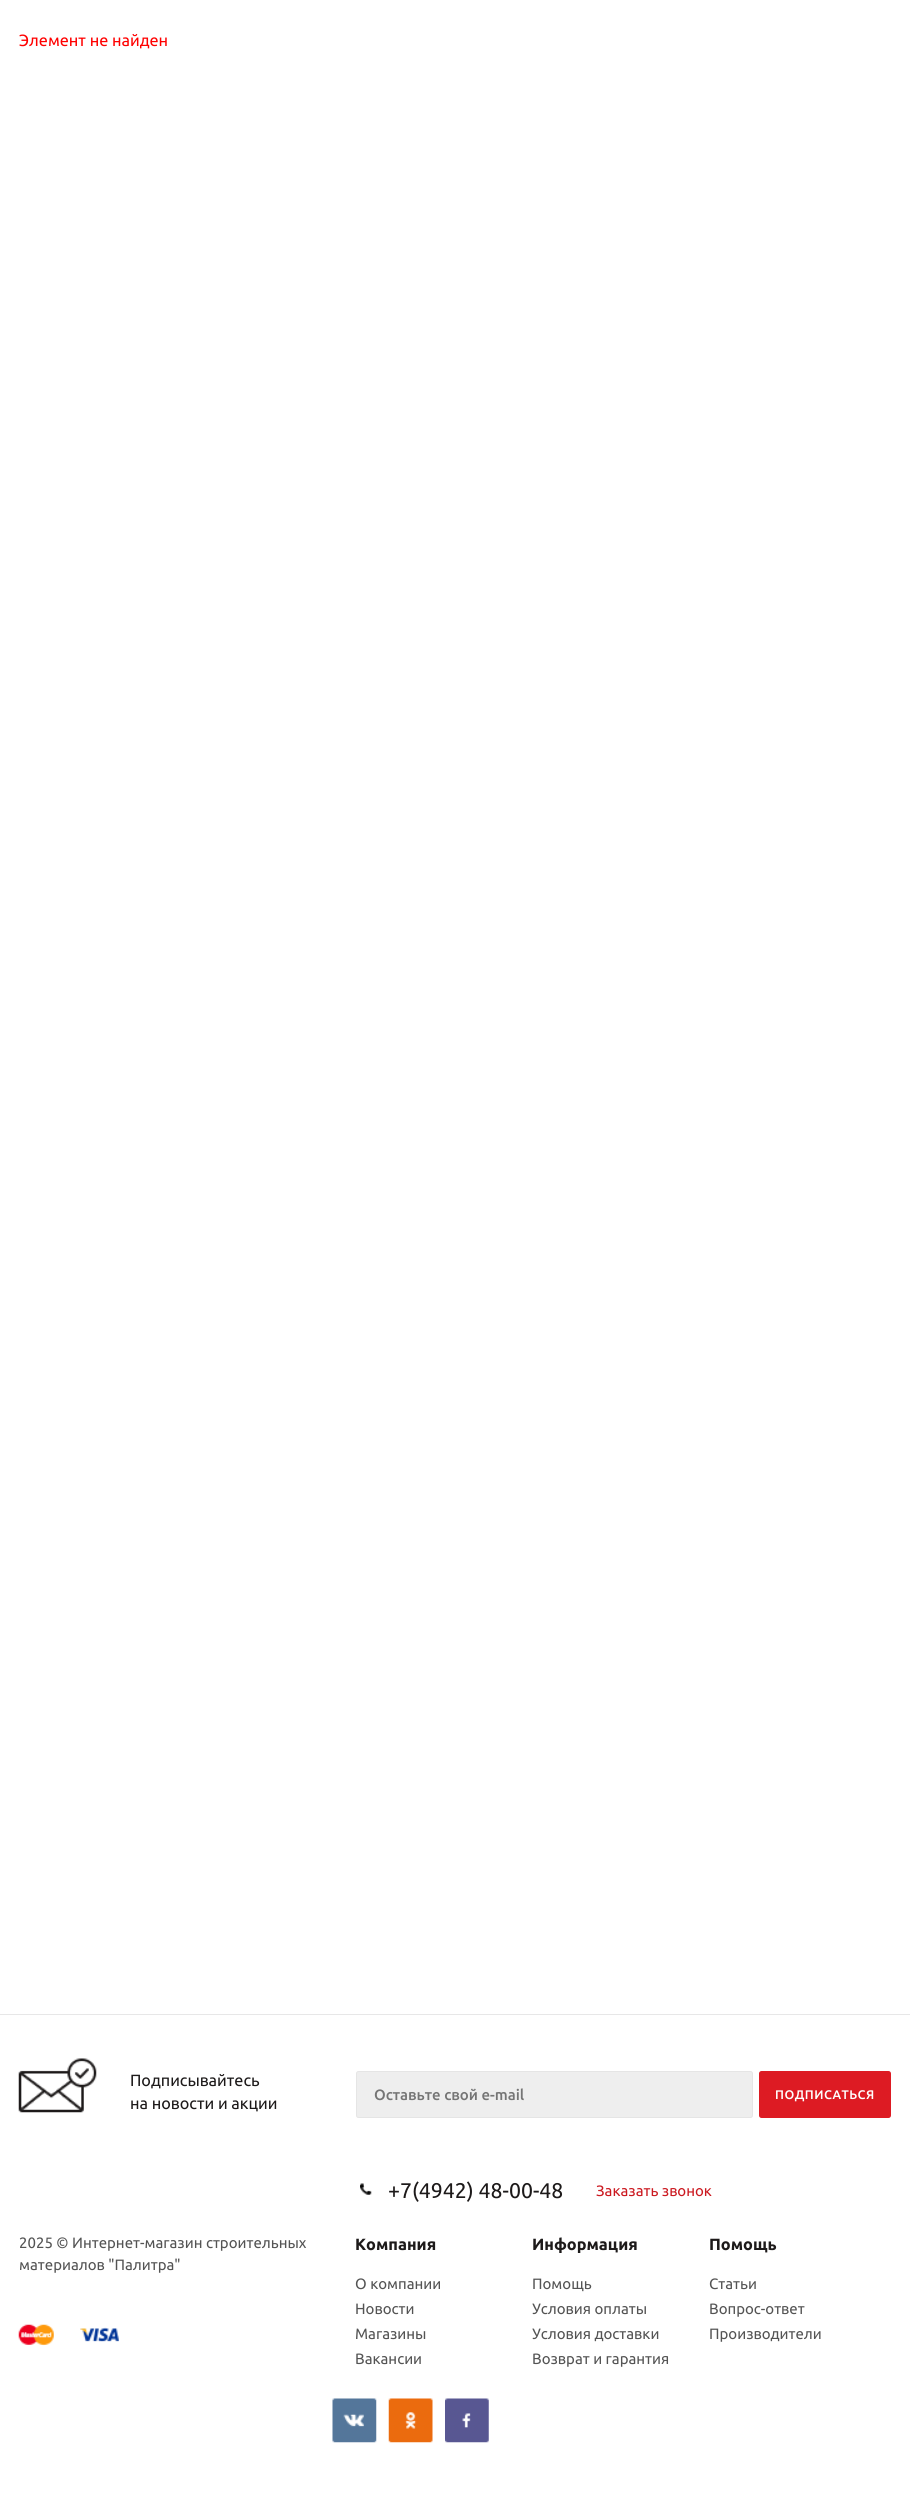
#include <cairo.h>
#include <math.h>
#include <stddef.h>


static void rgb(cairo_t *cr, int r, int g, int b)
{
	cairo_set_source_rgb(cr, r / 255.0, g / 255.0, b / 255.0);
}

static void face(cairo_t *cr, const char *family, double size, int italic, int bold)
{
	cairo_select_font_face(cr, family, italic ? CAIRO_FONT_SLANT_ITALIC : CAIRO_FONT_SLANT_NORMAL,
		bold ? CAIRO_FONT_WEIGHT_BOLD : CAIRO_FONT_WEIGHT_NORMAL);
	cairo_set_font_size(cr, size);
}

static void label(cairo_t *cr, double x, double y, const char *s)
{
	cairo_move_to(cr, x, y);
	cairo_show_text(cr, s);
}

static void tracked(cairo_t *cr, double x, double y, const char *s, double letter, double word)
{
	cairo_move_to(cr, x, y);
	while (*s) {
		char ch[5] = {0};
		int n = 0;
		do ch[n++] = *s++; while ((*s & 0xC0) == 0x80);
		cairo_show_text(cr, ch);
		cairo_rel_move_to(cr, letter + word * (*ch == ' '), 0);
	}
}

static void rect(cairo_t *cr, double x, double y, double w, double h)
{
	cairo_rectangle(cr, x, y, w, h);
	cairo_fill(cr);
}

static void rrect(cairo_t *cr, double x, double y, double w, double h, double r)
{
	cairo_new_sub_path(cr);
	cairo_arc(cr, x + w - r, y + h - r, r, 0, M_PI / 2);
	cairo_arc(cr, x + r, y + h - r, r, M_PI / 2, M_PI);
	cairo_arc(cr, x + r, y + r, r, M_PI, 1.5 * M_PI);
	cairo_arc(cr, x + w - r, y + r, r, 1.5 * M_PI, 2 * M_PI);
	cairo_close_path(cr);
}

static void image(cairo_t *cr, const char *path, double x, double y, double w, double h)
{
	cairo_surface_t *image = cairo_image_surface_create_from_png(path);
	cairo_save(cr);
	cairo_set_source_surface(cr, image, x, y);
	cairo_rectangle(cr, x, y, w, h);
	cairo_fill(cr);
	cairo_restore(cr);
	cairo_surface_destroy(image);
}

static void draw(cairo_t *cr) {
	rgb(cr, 255, 255, 255);
	cairo_paint(cr);
	face(cr, "Ubuntu", 16.25, 0, 0);
	rgb(cr, 255, 0, 0);
	label(cr, 19, 46, "Элемент не найден");
	rgb(cr, 231, 231, 231);
	rect(cr, 0, 2014, 910, 1);
	image(cr, "image0.png", 18, 2058, 79, 55);
	rgb(cr, 29, 26, 26);
	label(cr, 130, 2086, "Подписывайтесь");
	label(cr, 130, 2109, "на новости и акции");
	rgb(cr, 238, 238, 238);
	rrect(cr, 356.5, 2071.5, 396, 46, 2);
	cairo_fill_preserve(cr);
	rgb(cr, 229, 229, 229);
	cairo_set_line_width(cr, 1);
	cairo_stroke(cr);
	face(cr, "Ubuntu Medium", 15, 0, 0);
	rgb(cr, 117, 117, 117);
	label(cr, 374, 2100, "Оставьте свой e-mail");
	rgb(cr, 221, 27, 35);
	rrect(cr, 759, 2071, 132, 47, 2.5);
	cairo_fill(cr);
	face(cr, "Ubuntu Medium", 12.5, 0, 0);
	rgb(cr, 255, 255, 255);
	tracked(cr, 775, 2099, "ПОДПИСАТЬСЯ", 0.5, 0);
	image(cr, "image1.png", 360, 2183, 12, 12);
	face(cr, "Ubuntu", 21.25, 0, 0);
	rgb(cr, 29, 26, 26);
	label(cr, 388, 2198, "+7(4942) 48-00-48");
	face(cr, "Ubuntu", 15, 0, 0);
	rgb(cr, 203, 25, 32);
	label(cr, 596, 2196, "Заказать звонок");
	rgb(cr, 84, 84, 84);
	label(cr, 19, 2248, "2025 © Интернет-магазин строительных");
	label(cr, 19, 2270, "материалов \"Палитра\"");
	image(cr, "image2.png", 18, 2324, 36, 22);
	image(cr, "image3.png", 80, 2327, 39, 15);
	face(cr, "Ubuntu", 16.25, 0, 1);
	rgb(cr, 29, 26, 26);
	label(cr, 355, 2250, "Компания");
	label(cr, 532, 2250, "Информация");
	label(cr, 709, 2250, "Помощь");
	face(cr, "Ubuntu", 15, 0, 0);
	rgb(cr, 84, 84, 84);
	label(cr, 355, 2289, "О компании");
	label(cr, 355, 2314, "Новости");
	label(cr, 355, 2339, "Магазины");
	label(cr, 355, 2364, "Вакансии");
	label(cr, 532, 2289, "Помощь");
	label(cr, 532, 2314, "Условия оплаты");
	label(cr, 532, 2339, "Условия доставки");
	label(cr, 532, 2364, "Возврат и гарантия");
	label(cr, 709, 2289, "Статьи");
	label(cr, 709, 2314, "Вопрос-ответ");
	label(cr, 709, 2339, "Производители");
	image(cr, "image4.png", 332, 2398, 45, 45);
	image(cr, "image5.png", 388, 2398, 45, 45);
	image(cr, "image6.png", 445, 2398, 44, 45);
}

int main(void) {
	cairo_surface_t *surface = cairo_image_surface_create(CAIRO_FORMAT_RGB24, 910, 2494);
	cairo_t *cr = cairo_create(surface);
	cairo_font_options_t *options = cairo_font_options_create();
	cairo_font_options_set_hint_metrics(options, CAIRO_HINT_METRICS_OFF);
	cairo_font_options_set_hint_style(options, CAIRO_HINT_STYLE_NONE);
	cairo_set_font_options(cr, options);
	cairo_set_miter_limit(cr, 4);
	draw(cr);
	cairo_surface_write_to_png(surface, "render.png");
	cairo_font_options_destroy(options);
	cairo_destroy(cr);
	cairo_surface_destroy(surface);
	return 0;
}
